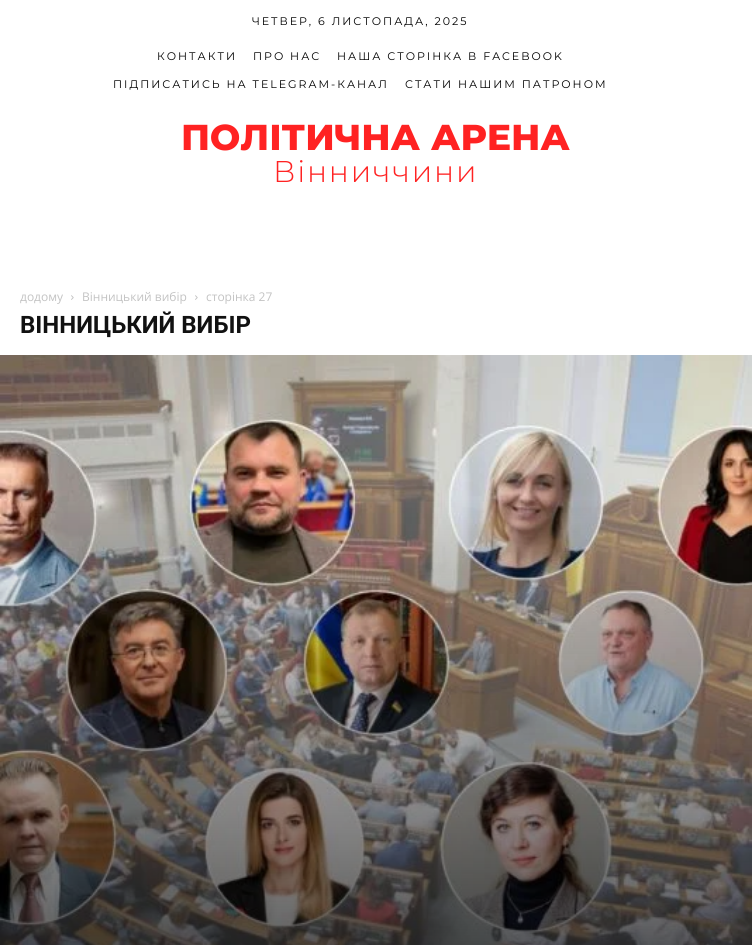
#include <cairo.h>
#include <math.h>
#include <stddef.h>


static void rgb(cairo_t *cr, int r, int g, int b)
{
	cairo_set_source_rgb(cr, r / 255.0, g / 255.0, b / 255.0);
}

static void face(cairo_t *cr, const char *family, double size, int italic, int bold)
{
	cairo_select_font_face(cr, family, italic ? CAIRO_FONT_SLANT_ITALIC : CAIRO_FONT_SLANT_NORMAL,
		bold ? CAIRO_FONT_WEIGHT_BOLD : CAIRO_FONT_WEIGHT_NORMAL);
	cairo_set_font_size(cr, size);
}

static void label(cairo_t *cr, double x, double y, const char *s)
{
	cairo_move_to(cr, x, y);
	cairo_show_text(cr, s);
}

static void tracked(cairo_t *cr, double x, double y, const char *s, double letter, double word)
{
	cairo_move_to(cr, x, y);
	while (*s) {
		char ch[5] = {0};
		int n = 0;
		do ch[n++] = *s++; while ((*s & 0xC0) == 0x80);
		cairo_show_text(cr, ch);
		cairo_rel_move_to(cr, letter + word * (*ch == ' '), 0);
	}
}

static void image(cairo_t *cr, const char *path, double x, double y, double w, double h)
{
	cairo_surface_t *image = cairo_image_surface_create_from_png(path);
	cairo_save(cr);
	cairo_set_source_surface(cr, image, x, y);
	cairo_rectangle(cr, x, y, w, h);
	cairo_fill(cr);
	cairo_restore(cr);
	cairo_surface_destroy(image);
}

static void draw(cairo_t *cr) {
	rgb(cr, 255, 255, 255);
	cairo_paint(cr);
	face(cr, "Montserrat", 11, 0, 0);
	rgb(cr, 0, 0, 0);
	tracked(cr, 252, 25, "ЧЕТВЕР, 6 ЛИСТОПАДА, 2025", 2, 0);
	tracked(cr, 157, 60, "КОНТАКТИ", 2, 0);
	tracked(cr, 253, 60, "ПРО НАС", 2, 0);
	tracked(cr, 337, 60, "НАША СТОРІНКА В FACEBOOK", 2, 0);
	tracked(cr, 113, 88, "ПІДПИСАТИСЬ НА TELEGRAM-КАНАЛ", 2, 0);
	tracked(cr, 405, 88, "СТАТИ НАШИМ ПАТРОНОМ", 2, 0);
	face(cr, "Montserrat ExtraBold", 36, 0, 0);
	rgb(cr, 255, 34, 34);
	label(cr, 181, 150, "ПОЛІТИЧНА АРЕНА");
	face(cr, "Montserrat Light", 30, 0, 0);
	tracked(cr, 273, 182, "Вінниччини", 1.75, 0);
	face(cr, "Open Sans", 12, 0, 0);
	rgb(cr, 195, 195, 195);
	label(cr, 20, 301, "додому");
	image(cr, "image0.png", 71, 295, 3, 5);
	label(cr, 82, 301, "Вінницький вибір");
	image(cr, "image0.png", 195, 295, 3, 5);
	label(cr, 206, 301, "сторінка 27");
	face(cr, "Roboto", 24, 0, 1);
	rgb(cr, 17, 17, 17);
	label(cr, 20, 333, "ВІННИЦЬКИЙ ВИБІР");
	image(cr, "image1.png", 0, 355, 752, 590);
}

int main(void) {
	cairo_surface_t *surface = cairo_image_surface_create(CAIRO_FORMAT_RGB24, 752, 945);
	cairo_t *cr = cairo_create(surface);
	cairo_font_options_t *options = cairo_font_options_create();
	cairo_font_options_set_hint_metrics(options, CAIRO_HINT_METRICS_OFF);
	cairo_font_options_set_hint_style(options, CAIRO_HINT_STYLE_NONE);
	cairo_set_font_options(cr, options);
	cairo_set_miter_limit(cr, 4);
	draw(cr);
	cairo_surface_write_to_png(surface, "render.png");
	cairo_font_options_destroy(options);
	cairo_destroy(cr);
	cairo_surface_destroy(surface);
	return 0;
}
